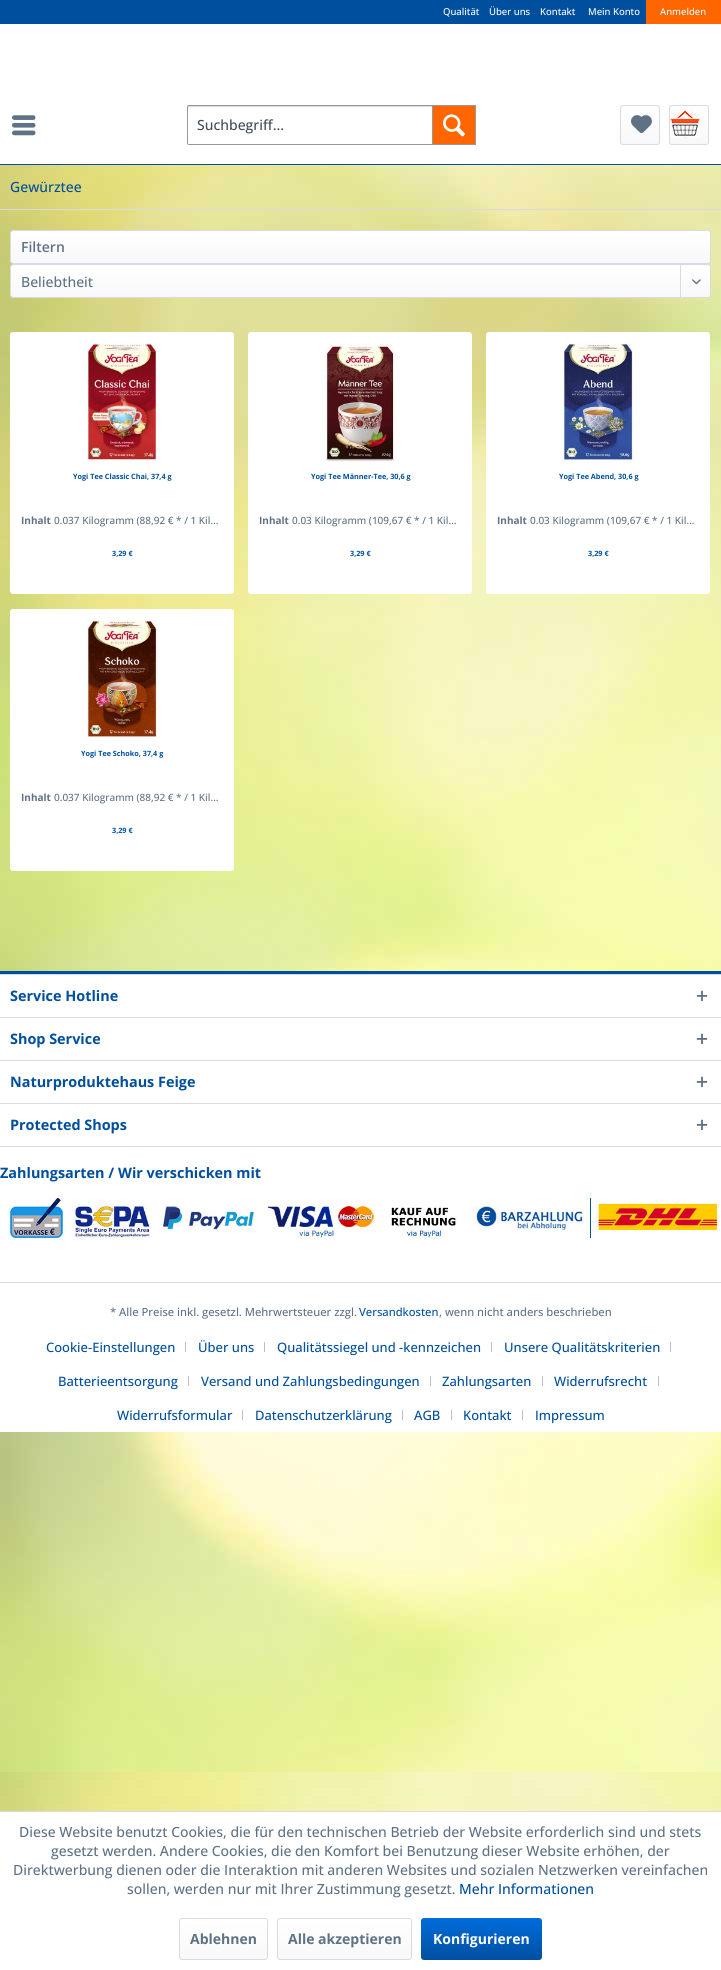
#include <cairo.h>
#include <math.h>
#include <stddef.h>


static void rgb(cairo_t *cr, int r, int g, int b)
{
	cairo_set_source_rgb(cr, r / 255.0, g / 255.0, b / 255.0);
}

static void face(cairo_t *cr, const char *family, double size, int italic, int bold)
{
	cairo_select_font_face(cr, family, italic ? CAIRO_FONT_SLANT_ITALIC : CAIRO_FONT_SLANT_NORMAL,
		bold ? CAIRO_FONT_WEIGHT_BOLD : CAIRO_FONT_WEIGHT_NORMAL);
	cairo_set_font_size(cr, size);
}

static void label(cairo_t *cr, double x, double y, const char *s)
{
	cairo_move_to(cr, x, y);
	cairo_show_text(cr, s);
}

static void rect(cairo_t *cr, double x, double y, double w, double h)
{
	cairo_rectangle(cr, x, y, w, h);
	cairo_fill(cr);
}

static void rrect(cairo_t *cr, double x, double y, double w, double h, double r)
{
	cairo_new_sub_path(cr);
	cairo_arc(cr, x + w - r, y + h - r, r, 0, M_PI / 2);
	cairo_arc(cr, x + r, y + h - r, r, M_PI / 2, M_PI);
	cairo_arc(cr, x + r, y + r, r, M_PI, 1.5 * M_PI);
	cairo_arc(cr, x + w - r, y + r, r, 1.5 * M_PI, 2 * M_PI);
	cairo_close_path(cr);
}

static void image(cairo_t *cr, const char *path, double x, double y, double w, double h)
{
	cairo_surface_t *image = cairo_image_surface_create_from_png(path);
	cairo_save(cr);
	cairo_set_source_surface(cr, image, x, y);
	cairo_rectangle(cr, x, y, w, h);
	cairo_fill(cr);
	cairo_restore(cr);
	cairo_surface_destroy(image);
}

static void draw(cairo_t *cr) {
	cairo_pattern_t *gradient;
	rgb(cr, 255, 255, 255);
	cairo_paint(cr);
	image(cr, "image0.png", 0, 165, 721, 1646);
	rgb(cr, 0, 79, 159);
	rect(cr, 0, 164, 721, 1);
	rect(cr, 0, 0, 646, 24);
	face(cr, "Open Sans Medium", 9.5, 0, 0);
	rgb(cr, 255, 255, 255);
	label(cr, 443, 15, "Qualität");
	label(cr, 489, 15, "Über uns");
	label(cr, 540, 15, "Kontakt");
	label(cr, 588, 15, "Mein Konto");
	rgb(cr, 255, 102, 0);
	rect(cr, 646, 0, 75, 24);
	rgb(cr, 255, 255, 255);
	label(cr, 660, 15, "Anmelden");
	image(cr, "image1.png", 12, 115, 24, 21);
	rgb(cr, 218, 218, 229);
	cairo_new_path(cr);
	cairo_move_to(cr, 189, 107);
	cairo_line_to(cr, 474, 107);
	cairo_line_to(cr, 475, 108);
	cairo_curve_to(cr, 475, 107, 475, 106, 474, 106);
	cairo_line_to(cr, 188, 106);
	cairo_line_to(cr, 188, 108);
	cairo_close_path(cr);
	cairo_fill(cr);
	rrect(cr, 187.5, 105.5, 288, 39, 1.5);
	rgb(cr, 153, 153, 153);
	cairo_set_line_width(cr, 1);
	cairo_stroke(cr);
	face(cr, "Open Sans Medium", 14, 0, 0);
	rgb(cr, 63, 76, 88);
	label(cr, 197, 130, "Suchbegriff...");
	rgb(cr, 255, 102, 0);
	cairo_rectangle(cr, 432.5, 105.5, 43, 39);
	cairo_fill_preserve(cr);
	rgb(cr, 153, 153, 153);
	cairo_stroke(cr);
	image(cr, "image2.png", 443, 114, 22, 23);
	gradient = cairo_pattern_create_linear(640, 106, 640, 144);
	cairo_pattern_add_color_stop_rgba(gradient, 0, 1, 1, 1, 1);
	cairo_pattern_add_color_stop_rgba(gradient, 1, 0.973, 0.973, 0.98, 1);
	cairo_set_source(cr, gradient);
	cairo_pattern_destroy(gradient);
	rrect(cr, 621, 106, 38, 38, 2);
	cairo_fill(cr);
	rrect(cr, 620.5, 105.5, 39, 39, 2.5);
	rgb(cr, 218, 218, 229);
	cairo_stroke(cr);
	image(cr, "image3.png", 631, 115, 21, 19);
	gradient = cairo_pattern_create_linear(689, 106, 689, 144);
	cairo_pattern_add_color_stop_rgba(gradient, 0, 1, 1, 1, 1);
	cairo_pattern_add_color_stop_rgba(gradient, 1, 0.973, 0.973, 0.98, 1);
	cairo_set_source(cr, gradient);
	cairo_pattern_destroy(gradient);
	rrect(cr, 670, 106, 38, 38, 2);
	cairo_fill(cr);
	rrect(cr, 669.5, 105.5, 39, 39, 2.5);
	rgb(cr, 218, 218, 229);
	cairo_stroke(cr);
	image(cr, "image4.png", 670, 110, 30, 28);
	rect(cr, 0, 209, 721, 1);
	rgb(cr, 0, 79, 159);
	label(cr, 10, 192, "Gewürztee");
	gradient = cairo_pattern_create_linear(361, 231, 361, 263);
	cairo_pattern_add_color_stop_rgba(gradient, 0, 1, 1, 1, 1);
	cairo_pattern_add_color_stop_rgba(gradient, 1, 0.973, 0.973, 0.98, 1);
	cairo_set_source(cr, gradient);
	cairo_pattern_destroy(gradient);
	rrect(cr, 11, 231, 699, 32, 2);
	cairo_fill(cr);
	rrect(cr, 10.5, 230.5, 700, 33, 2.5);
	rgb(cr, 218, 218, 229);
	cairo_stroke(cr);
	face(cr, "Open Sans SemiBold", 14, 0, 0);
	rgb(cr, 95, 114, 133);
	label(cr, 21, 252, "Filtern");
	gradient = cairo_pattern_create_linear(361, 265, 361, 297);
	cairo_pattern_add_color_stop_rgba(gradient, 0, 1, 1, 1, 1);
	cairo_pattern_add_color_stop_rgba(gradient, 1, 0.973, 0.973, 0.98, 1);
	cairo_set_source(cr, gradient);
	cairo_pattern_destroy(gradient);
	rrect(cr, 11, 265, 699, 32, 2);
	cairo_fill(cr);
	rrect(cr, 10.5, 264.5, 700, 33, 2.5);
	rgb(cr, 218, 218, 229);
	cairo_stroke(cr);
	face(cr, "Open Sans Medium", 14, 0, 0);
	rgb(cr, 95, 114, 133);
	label(cr, 21, 287, "Beliebtheit");
	rgb(cr, 218, 218, 229);
	rect(cr, 680, 265, 1, 33);
	image(cr, "image5.png", 692, 279, 9, 6);
	rgb(cr, 255, 255, 255);
	rrect(cr, 10.5, 332.5, 223, 261, 2.5);
	cairo_fill_preserve(cr);
	cairo_stroke(cr);
	image(cr, "image6.png", 81, 343, 77, 120);
	face(cr, "Open Sans", 7.25, 0, 1);
	rgb(cr, 0, 79, 159);
	label(cr, 73, 479, "Yogi Tee Classic Chai, 37,4 g");
	face(cr, "Open Sans", 10, 0, 1);
	rgb(cr, 95, 114, 133);
	label(cr, 21, 524, "Inhalt");
	face(cr, "Open Sans Medium", 10, 0, 0);
	label(cr, 54, 524, "0.037 Kilogramm (88,92 € * / 1 Kil…");
	face(cr, "Open Sans", 7.25, 0, 1);
	rgb(cr, 0, 79, 159);
	label(cr, 112, 556, "3,29 €");
	rgb(cr, 255, 255, 255);
	rrect(cr, 248.5, 332.5, 223, 261, 2.5);
	cairo_fill_preserve(cr);
	cairo_stroke(cr);
	image(cr, "image7.png", 324, 343, 72, 119);
	rgb(cr, 0, 79, 159);
	label(cr, 311, 479, "Yogi Tee Männer-Tee, 30,6 g");
	face(cr, "Open Sans", 10, 0, 1);
	rgb(cr, 95, 114, 133);
	label(cr, 259, 524, "Inhalt");
	face(cr, "Open Sans Medium", 10, 0, 0);
	label(cr, 292, 524, "0.03 Kilogramm (109,67 € * / 1 Kil…");
	face(cr, "Open Sans", 7.25, 0, 1);
	rgb(cr, 0, 79, 159);
	label(cr, 350, 556, "3,29 €");
	rgb(cr, 255, 255, 255);
	rrect(cr, 486.5, 332.5, 223, 261, 2.5);
	cairo_fill_preserve(cr);
	cairo_stroke(cr);
	image(cr, "image8.png", 561, 343, 73, 120);
	rgb(cr, 0, 79, 159);
	label(cr, 559, 479, "Yogi Tee Abend, 30,6 g");
	face(cr, "Open Sans", 10, 0, 1);
	rgb(cr, 95, 114, 133);
	label(cr, 497, 524, "Inhalt");
	face(cr, "Open Sans Medium", 10, 0, 0);
	label(cr, 530, 524, "0.03 Kilogramm (109,67 € * / 1 Kil…");
	face(cr, "Open Sans", 7.25, 0, 1);
	rgb(cr, 0, 79, 159);
	label(cr, 588, 556, "3,29 €");
	rgb(cr, 255, 255, 255);
	rrect(cr, 10.5, 609.5, 223, 261, 2.5);
	cairo_fill_preserve(cr);
	cairo_stroke(cr);
	image(cr, "image9.png", 81, 620, 77, 120);
	rgb(cr, 0, 79, 159);
	label(cr, 81, 756, "Yogi Tee Schoko, 37,4 g");
	face(cr, "Open Sans", 10, 0, 1);
	rgb(cr, 95, 114, 133);
	label(cr, 21, 801, "Inhalt");
	face(cr, "Open Sans Medium", 10, 0, 0);
	label(cr, 54, 801, "0.037 Kilogramm (88,92 € * / 1 Kil…");
	face(cr, "Open Sans", 7.25, 0, 1);
	rgb(cr, 0, 79, 159);
	label(cr, 112, 833, "3,29 €");
	rgb(cr, 255, 255, 255);
	rect(cr, 0, 975, 721, 457);
	rgb(cr, 0, 79, 159);
	rect(cr, 0, 971, 721, 3);
	rgb(cr, 218, 218, 229);
	rect(cr, 0, 974, 721, 1);
	face(cr, "Open Sans", 14.4, 0, 1);
	rgb(cr, 0, 79, 159);
	label(cr, 10, 1001, "Service Hotline");
	image(cr, "image10.png", 696, 990, 12, 12);
	rgb(cr, 218, 218, 229);
	rect(cr, 0, 1017, 721, 1);
	rgb(cr, 0, 79, 159);
	label(cr, 10, 1044, "Shop Service");
	image(cr, "image10.png", 696, 1033, 12, 12);
	rgb(cr, 218, 218, 229);
	rect(cr, 0, 1060, 721, 1);
	rgb(cr, 0, 79, 159);
	label(cr, 10, 1087, "Naturproduktehaus Feige");
	image(cr, "image10.png", 696, 1076, 12, 12);
	rgb(cr, 218, 218, 229);
	rect(cr, 0, 1103, 721, 1);
	rect(cr, 0, 1146, 721, 1);
	rgb(cr, 0, 79, 159);
	label(cr, 10, 1130, "Protected Shops");
	image(cr, "image10.png", 696, 1119, 12, 12);
	rgb(cr, 218, 218, 229);
	rect(cr, 0, 1282, 721, 1);
	rgb(cr, 0, 79, 159);
	label(cr, 0, 1178, "Zahlungsarten / Wir verschicken mit");
	image(cr, "image11.png", 9, 1198, 710, 40);
	face(cr, "Open Sans Medium", 11.2, 0, 0);
	rgb(cr, 95, 114, 133);
	label(cr, 110, 1316, "* Alle Preise inkl. gesetzl. Mehrwertsteuer zzgl.");
	rgb(cr, 0, 79, 159);
	label(cr, 359, 1316, "Versandkosten");
	rgb(cr, 95, 114, 133);
	label(cr, 439, 1316, ", wenn nicht anders beschrieben");
	face(cr, "Open Sans Medium", 13, 0, 0);
	rgb(cr, 0, 79, 159);
	label(cr, 46, 1352, "Cookie-Einstellungen");
	rgb(cr, 188, 188, 208);
	rect(cr, 185, 1342, 1, 10);
	rgb(cr, 0, 79, 159);
	label(cr, 198, 1352, "Über uns");
	rgb(cr, 188, 188, 208);
	rect(cr, 264, 1342, 1, 10);
	rgb(cr, 0, 79, 159);
	label(cr, 277, 1352, "Qualitätssiegel und -kennzeichen");
	rgb(cr, 188, 188, 208);
	rect(cr, 491, 1342, 1, 10);
	rgb(cr, 0, 79, 159);
	label(cr, 504, 1352, "Unsere Qualitätskriterien");
	rgb(cr, 188, 188, 208);
	rect(cr, 670, 1342, 1, 10);
	rgb(cr, 0, 79, 159);
	label(cr, 58, 1386, "Batterieentsorgung");
	rgb(cr, 188, 188, 208);
	rect(cr, 188, 1376, 1, 10);
	rgb(cr, 0, 79, 159);
	label(cr, 201, 1386, "Versand und Zahlungsbedingungen");
	rgb(cr, 188, 188, 208);
	rect(cr, 430, 1376, 1, 10);
	rgb(cr, 0, 79, 159);
	label(cr, 442, 1386, "Zahlungsarten");
	rgb(cr, 188, 188, 208);
	rect(cr, 542, 1376, 1, 10);
	rgb(cr, 0, 79, 159);
	label(cr, 554, 1386, "Widerrufsrecht");
	rgb(cr, 188, 188, 208);
	rect(cr, 658, 1376, 1, 10);
	rgb(cr, 0, 79, 159);
	label(cr, 117, 1420, "Widerrufsformular");
	rgb(cr, 188, 188, 208);
	rect(cr, 242, 1410, 1, 10);
	rgb(cr, 0, 79, 159);
	label(cr, 255, 1420, "Datenschutzerklärung");
	rgb(cr, 188, 188, 208);
	rect(cr, 402, 1410, 1, 10);
	rgb(cr, 0, 79, 159);
	label(cr, 414, 1420, "AGB");
	rgb(cr, 188, 188, 208);
	rect(cr, 451, 1410, 1, 10);
	rgb(cr, 0, 79, 159);
	label(cr, 463, 1420, "Kontakt");
	rgb(cr, 188, 188, 208);
	rect(cr, 522, 1410, 1, 10);
	rgb(cr, 0, 79, 159);
	label(cr, 535, 1420, "Impressum");
	rgb(cr, 218, 218, 229);
	rect(cr, 0, 1811, 721, 1);
	face(cr, "Open Sans Medium", 14, 0, 0);
	rgb(cr, 95, 114, 133);
	label(cr, 19, 1837, "Diese Website benutzt Cookies, die für den technischen Betrieb der Website erforderlich sind und stets");
	label(cr, 51, 1856, "gesetzt werden. Andere Cookies, die den Komfort bei Benutzung dieser Website erhöhen, der");
	label(cr, 13, 1875, "Direktwerbung dienen oder die Interaktion mit anderen Websites und sozialen Netzwerken vereinfachen");
	label(cr, 127, 1894, "sollen, werden nur mit Ihrer Zustimmung gesetzt.");
	rgb(cr, 0, 79, 159);
	label(cr, 459, 1894, "Mehr Informationen");
	gradient = cairo_pattern_create_linear(224, 1919, 224, 1959);
	cairo_pattern_add_color_stop_rgba(gradient, 0, 1, 1, 1, 1);
	cairo_pattern_add_color_stop_rgba(gradient, 1, 0.973, 0.973, 0.98, 1);
	cairo_set_source(cr, gradient);
	cairo_pattern_destroy(gradient);
	rrect(cr, 180, 1919, 87, 40, 2);
	cairo_fill(cr);
	rrect(cr, 179.5, 1918.5, 88, 41, 2.5);
	rgb(cr, 218, 218, 229);
	cairo_stroke(cr);
	face(cr, "Open Sans", 14, 0, 1);
	rgb(cr, 95, 114, 133);
	label(cr, 190, 1944, "Ablehnen");
	gradient = cairo_pattern_create_linear(345, 1919, 345, 1959);
	cairo_pattern_add_color_stop_rgba(gradient, 0, 1, 1, 1, 1);
	cairo_pattern_add_color_stop_rgba(gradient, 1, 0.973, 0.973, 0.98, 1);
	cairo_set_source(cr, gradient);
	cairo_pattern_destroy(gradient);
	rrect(cr, 278, 1919, 133, 40, 2);
	cairo_fill(cr);
	rrect(cr, 277.5, 1918.5, 134, 41, 2.5);
	rgb(cr, 218, 218, 229);
	cairo_stroke(cr);
	rgb(cr, 95, 114, 133);
	label(cr, 288, 1944, "Alle akzeptieren");
	gradient = cairo_pattern_create_linear(482, 1918, 482, 1960);
	cairo_pattern_add_color_stop_rgba(gradient, 0, 0, 0.427, 0.863, 1);
	cairo_pattern_add_color_stop_rgba(gradient, 1, 0, 0.31, 0.624, 1);
	cairo_set_source(cr, gradient);
	cairo_pattern_destroy(gradient);
	rrect(cr, 421, 1918, 121, 42, 3);
	cairo_fill(cr);
	rgb(cr, 255, 255, 255);
	label(cr, 433, 1944, "Konfigurieren");
}

int main(void) {
	cairo_surface_t *surface = cairo_image_surface_create(CAIRO_FORMAT_RGB24, 721, 1970);
	cairo_t *cr = cairo_create(surface);
	cairo_font_options_t *options = cairo_font_options_create();
	cairo_font_options_set_hint_metrics(options, CAIRO_HINT_METRICS_OFF);
	cairo_font_options_set_hint_style(options, CAIRO_HINT_STYLE_NONE);
	cairo_set_font_options(cr, options);
	cairo_set_miter_limit(cr, 4);
	draw(cr);
	cairo_surface_write_to_png(surface, "render.png");
	cairo_font_options_destroy(options);
	cairo_destroy(cr);
	cairo_surface_destroy(surface);
	return 0;
}
